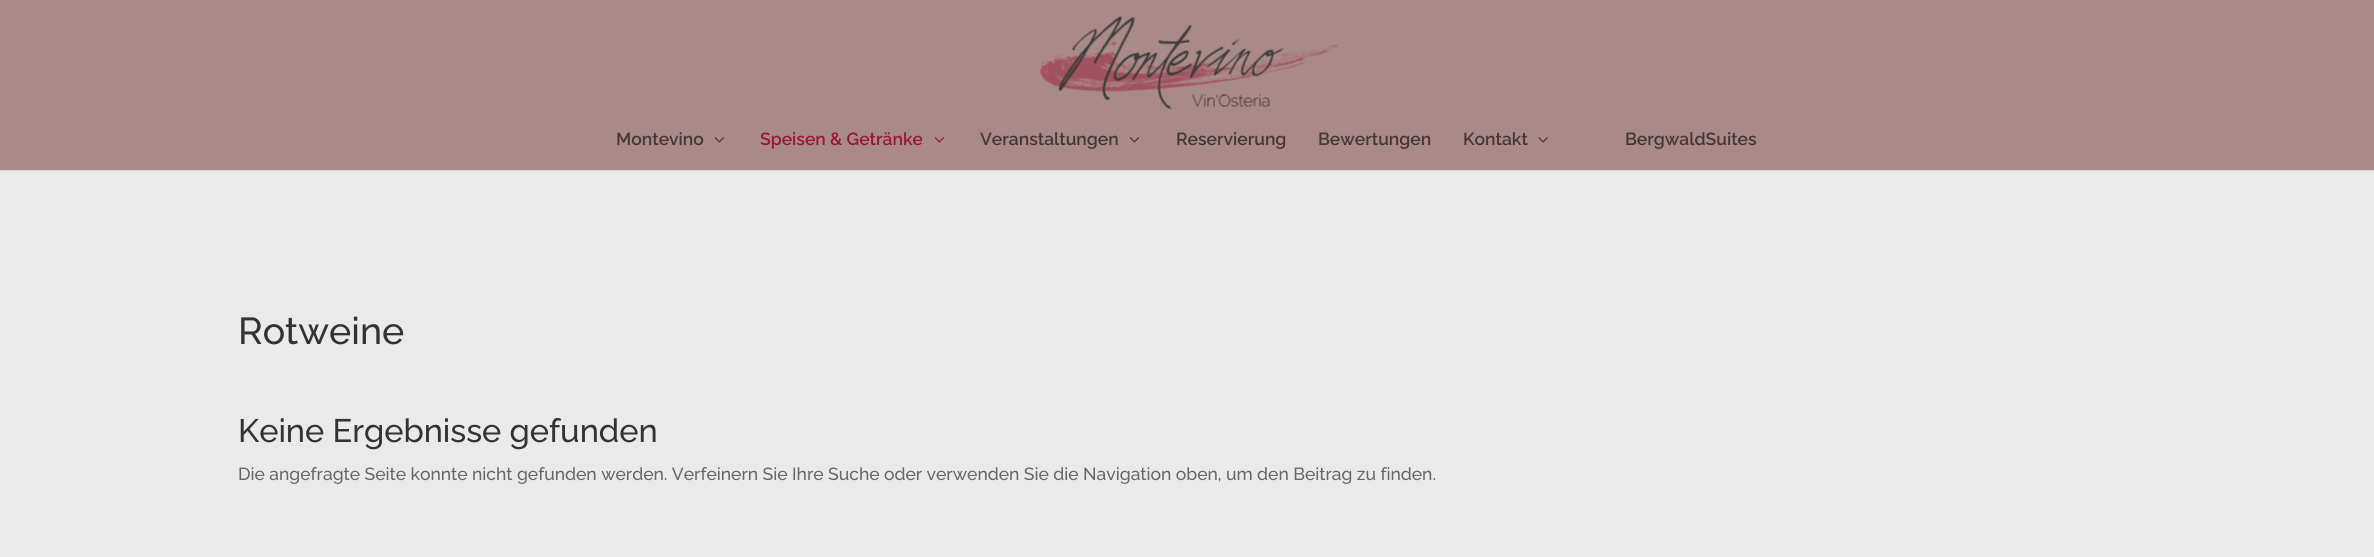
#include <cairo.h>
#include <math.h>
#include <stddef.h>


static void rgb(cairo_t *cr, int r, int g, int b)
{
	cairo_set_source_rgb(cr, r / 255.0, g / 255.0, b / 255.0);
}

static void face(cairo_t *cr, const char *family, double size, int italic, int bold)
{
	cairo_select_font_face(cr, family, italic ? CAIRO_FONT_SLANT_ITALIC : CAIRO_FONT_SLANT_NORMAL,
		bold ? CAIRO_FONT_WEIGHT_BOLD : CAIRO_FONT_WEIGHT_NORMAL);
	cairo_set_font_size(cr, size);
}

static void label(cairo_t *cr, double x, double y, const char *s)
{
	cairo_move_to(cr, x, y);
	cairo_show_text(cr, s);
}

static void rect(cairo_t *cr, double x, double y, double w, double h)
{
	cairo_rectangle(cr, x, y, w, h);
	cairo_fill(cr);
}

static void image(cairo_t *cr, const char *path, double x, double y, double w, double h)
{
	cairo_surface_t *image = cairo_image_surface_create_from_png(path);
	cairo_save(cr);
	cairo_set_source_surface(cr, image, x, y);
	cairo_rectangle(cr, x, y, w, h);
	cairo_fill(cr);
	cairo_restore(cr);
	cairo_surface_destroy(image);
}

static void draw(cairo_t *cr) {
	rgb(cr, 234, 234, 234);
	cairo_paint(cr);
	rgb(cr, 211, 211, 211);
	rect(cr, 0, 170, 2374, 1);
	rgb(cr, 170, 138, 136);
	rect(cr, 0, 0, 2374, 170);
	image(cr, "image0.png", 1039, 16, 299, 94);
	face(cr, "Raleway SemiBold", 17.5, 0, 0);
	rgb(cr, 68, 55, 54);
	label(cr, 616, 145, "Montevino");
	image(cr, "image1.png", 714, 137, 10, 6);
	rgb(cr, 153, 24, 55);
	label(cr, 760, 145, "Speisen & Getränke");
	image(cr, "image2.png", 934, 137, 10, 6);
	rgb(cr, 68, 55, 54);
	label(cr, 980, 145, "Veranstaltungen");
	image(cr, "image1.png", 1129, 137, 10, 6);
	label(cr, 1176, 145, "Reservierung");
	label(cr, 1318, 145, "Bewertungen");
	label(cr, 1463, 145, "Kontakt");
	image(cr, "image3.png", 1538, 137, 10, 6);
	label(cr, 1625, 145, "BergwaldSuites");
	face(cr, "Raleway Medium", 37.5, 0, 0);
	rgb(cr, 51, 51, 51);
	label(cr, 238, 344, "Rotweine");
	face(cr, "Raleway Medium", 32.5, 0, 0);
	label(cr, 238, 442, "Keine Ergebnisse gefunden");
	face(cr, "Raleway Medium", 17.5, 0, 0);
	rgb(cr, 102, 102, 102);
	label(cr, 238, 480, "Die angefragte Seite konnte nicht gefunden werden. Verfeinern Sie Ihre Suche oder verwenden Sie die Navigation oben, um den Beitrag zu finden.");
}

int main(void) {
	cairo_surface_t *surface = cairo_image_surface_create(CAIRO_FORMAT_RGB24, 2374, 557);
	cairo_t *cr = cairo_create(surface);
	cairo_font_options_t *options = cairo_font_options_create();
	cairo_font_options_set_hint_metrics(options, CAIRO_HINT_METRICS_OFF);
	cairo_font_options_set_hint_style(options, CAIRO_HINT_STYLE_NONE);
	cairo_set_font_options(cr, options);
	cairo_set_miter_limit(cr, 4);
	draw(cr);
	cairo_surface_write_to_png(surface, "render.png");
	cairo_font_options_destroy(options);
	cairo_destroy(cr);
	cairo_surface_destroy(surface);
	return 0;
}
